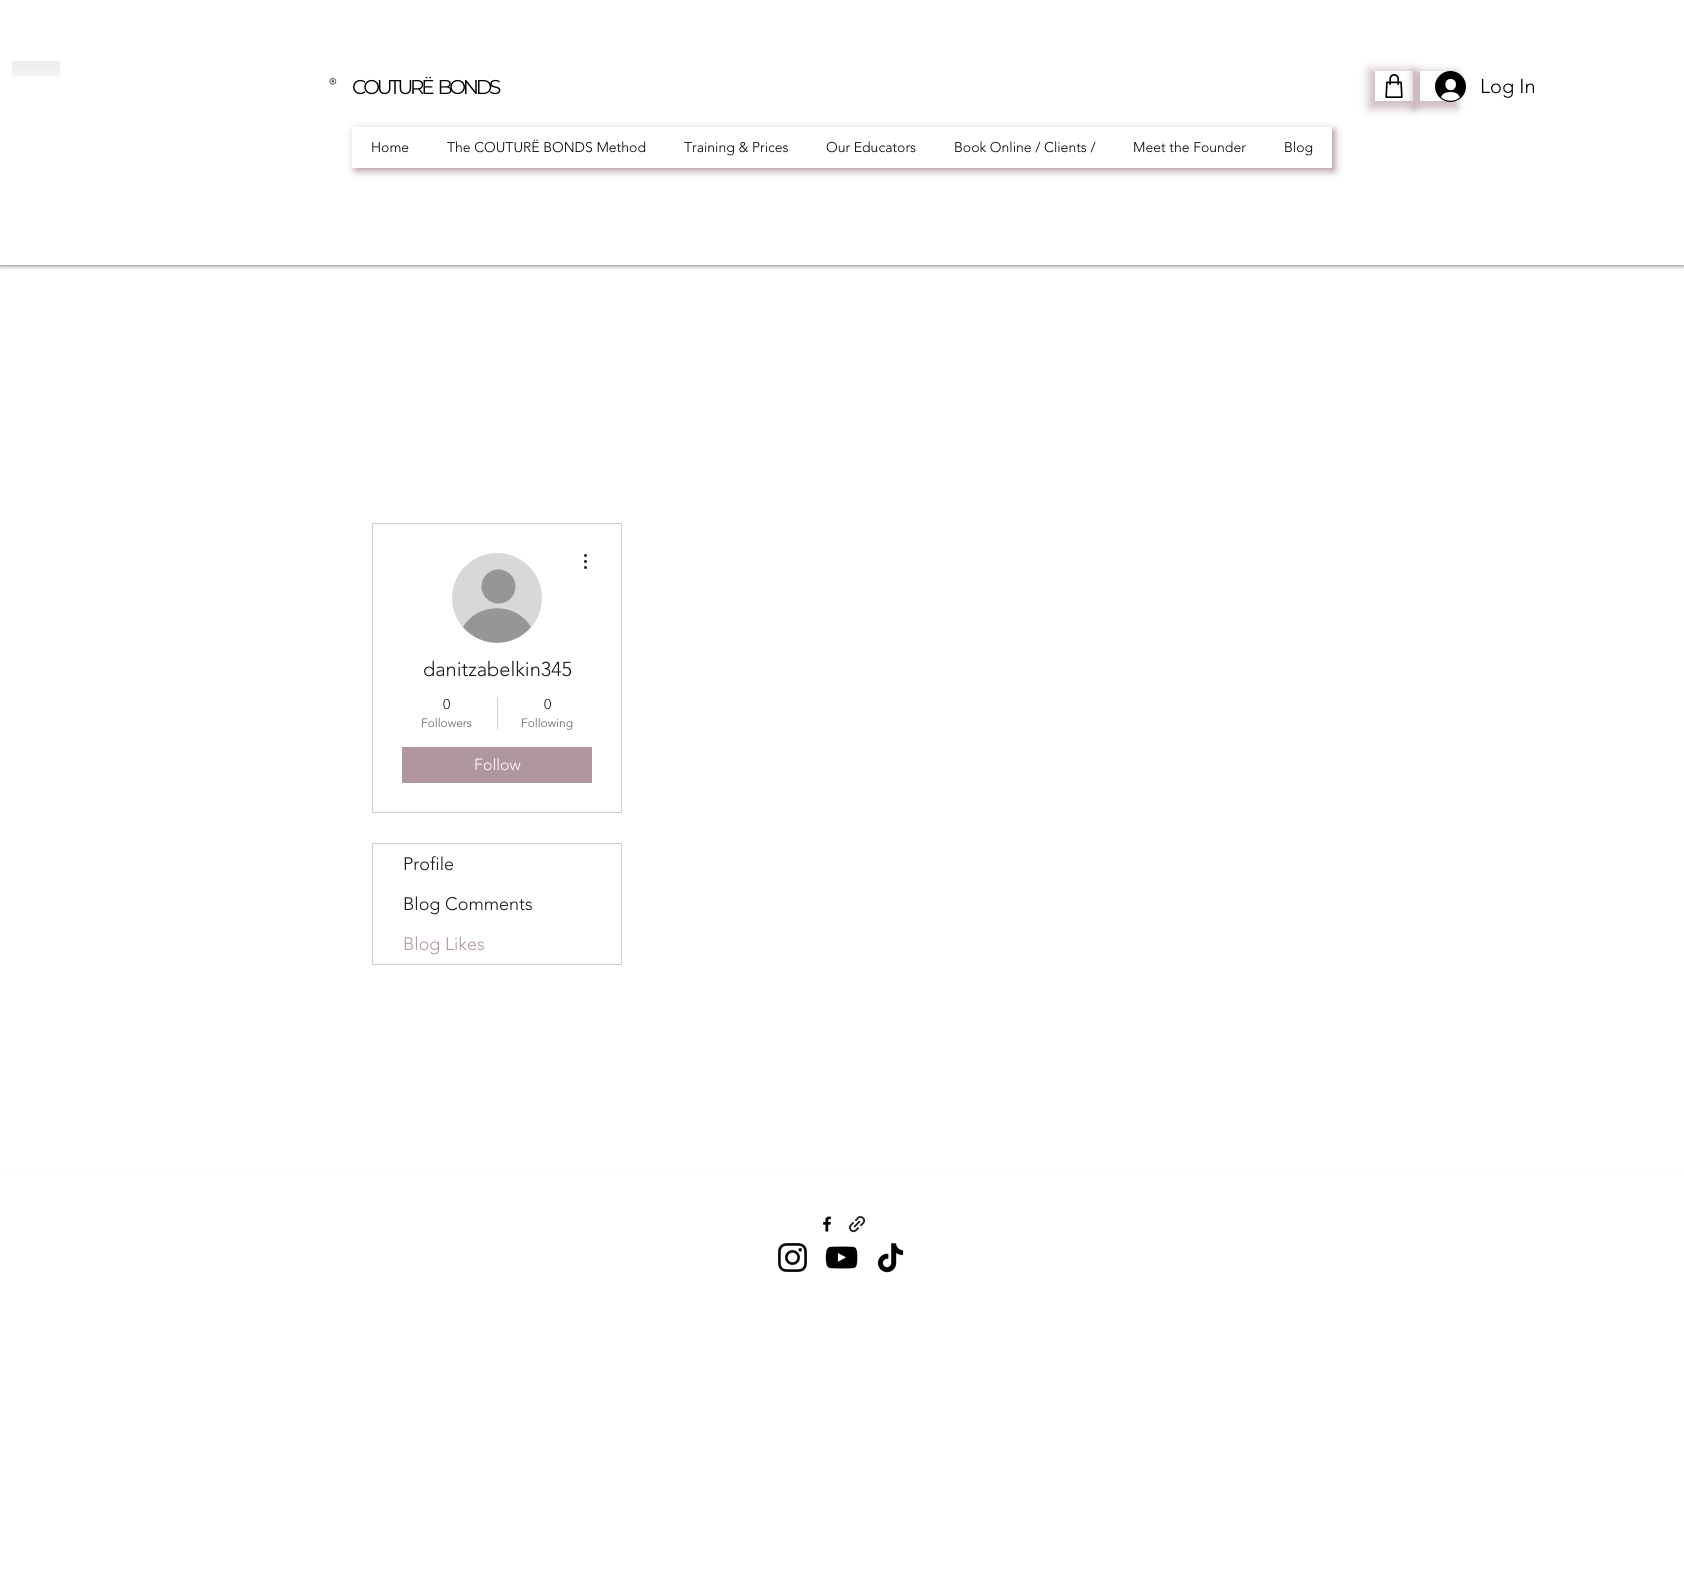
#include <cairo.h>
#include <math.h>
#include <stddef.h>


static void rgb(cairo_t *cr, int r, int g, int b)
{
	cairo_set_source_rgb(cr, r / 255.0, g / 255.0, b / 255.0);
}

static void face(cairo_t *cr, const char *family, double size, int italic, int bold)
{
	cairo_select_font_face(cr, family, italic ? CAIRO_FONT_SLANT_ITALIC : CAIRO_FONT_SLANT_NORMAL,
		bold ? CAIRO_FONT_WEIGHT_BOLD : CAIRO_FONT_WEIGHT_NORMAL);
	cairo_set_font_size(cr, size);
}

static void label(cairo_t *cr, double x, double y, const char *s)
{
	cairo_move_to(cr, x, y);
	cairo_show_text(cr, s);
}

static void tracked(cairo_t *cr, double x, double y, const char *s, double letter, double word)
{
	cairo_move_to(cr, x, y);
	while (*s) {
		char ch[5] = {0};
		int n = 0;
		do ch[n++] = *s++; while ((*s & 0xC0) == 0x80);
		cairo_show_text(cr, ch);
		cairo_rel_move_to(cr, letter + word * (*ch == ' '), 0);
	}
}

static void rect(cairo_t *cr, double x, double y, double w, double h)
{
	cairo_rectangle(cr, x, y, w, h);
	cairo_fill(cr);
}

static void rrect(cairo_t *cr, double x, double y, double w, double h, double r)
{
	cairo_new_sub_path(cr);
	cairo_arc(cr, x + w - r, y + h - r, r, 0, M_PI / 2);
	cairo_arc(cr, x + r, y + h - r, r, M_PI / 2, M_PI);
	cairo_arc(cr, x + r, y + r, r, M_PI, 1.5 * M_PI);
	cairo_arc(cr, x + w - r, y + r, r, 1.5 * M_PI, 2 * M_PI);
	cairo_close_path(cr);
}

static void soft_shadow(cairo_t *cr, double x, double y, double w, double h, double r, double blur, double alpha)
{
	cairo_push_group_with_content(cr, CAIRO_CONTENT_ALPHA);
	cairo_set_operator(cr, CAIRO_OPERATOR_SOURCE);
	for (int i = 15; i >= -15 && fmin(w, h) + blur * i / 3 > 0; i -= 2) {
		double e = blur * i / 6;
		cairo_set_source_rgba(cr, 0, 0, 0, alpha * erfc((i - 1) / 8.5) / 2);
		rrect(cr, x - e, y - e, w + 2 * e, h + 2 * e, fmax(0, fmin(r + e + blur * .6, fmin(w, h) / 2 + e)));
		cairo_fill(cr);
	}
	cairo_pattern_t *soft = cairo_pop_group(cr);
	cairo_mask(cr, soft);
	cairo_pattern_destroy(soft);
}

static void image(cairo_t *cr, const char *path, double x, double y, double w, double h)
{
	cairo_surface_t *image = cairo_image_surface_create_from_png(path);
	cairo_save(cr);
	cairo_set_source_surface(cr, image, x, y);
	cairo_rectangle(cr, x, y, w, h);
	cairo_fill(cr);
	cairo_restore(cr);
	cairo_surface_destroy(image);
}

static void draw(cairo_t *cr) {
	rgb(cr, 255, 255, 255);
	cairo_paint(cr);
	cairo_save(cr);
	cairo_rectangle(cr, 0, 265, 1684, 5);
	cairo_clip(cr);
	rgb(cr, 0, 0, 0);
	soft_shadow(cr, 0, 0, 1684, 265, 0, 2.5, 0.7);
	cairo_restore(cr);
	image(cr, "image0.png", 12, 61, 48, 15);
	face(cr, "Montserrat", 20, 0, 0);
	rgb(cr, 0, 0, 0);
	tracked(cr, 352, 94, "COUTURË   BONDS", -3.25, 0);
	image(cr, "image1.png", 329, 77, 8, 8);
	cairo_save(cr);
	cairo_set_fill_rule(cr, CAIRO_FILL_RULE_EVEN_ODD);
	cairo_new_path(cr);
	cairo_move_to(cr, 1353, 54);
	cairo_line_to(cr, 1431, 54);
	cairo_line_to(cr, 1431, 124);
	cairo_line_to(cr, 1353, 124);
	cairo_close_path(cr);
	cairo_move_to(cr, 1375, 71);
	cairo_line_to(cr, 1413, 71);
	cairo_line_to(cr, 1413, 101);
	cairo_line_to(cr, 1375, 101);
	cairo_close_path(cr);
	cairo_clip(cr);
	rgb(cr, 176, 151, 158);
	soft_shadow(cr, 1369, 70, 46, 38, 0, 5, 0.65);
	cairo_restore(cr);
	image(cr, "image2.png", 1385, 74, 18, 24);
	rgb(cr, 176, 151, 158);
	soft_shadow(cr, 1412, 71, 46, 38, 0, 3.5, 0.6);
	rgb(cr, 255, 255, 255);
	rect(cr, 1420, 71, 38, 30);
	image(cr, "image3.png", 1435, 71, 31, 31);
	face(cr, "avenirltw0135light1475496 Light", 20, 0, 0);
	rgb(cr, 0, 0, 0);
	label(cr, 1480, 93, "Log In");
	rgb(cr, 176, 151, 158);
	soft_shadow(cr, 355, 130, 980, 41, 1, 4, 1);
	rgb(cr, 255, 255, 255);
	rrect(cr, 352, 127, 980, 41, 1);
	cairo_fill(cr);
	face(cr, "avenirltw0135light1475496 Light", 14, 0, 0);
	rgb(cr, 0, 0, 0);
	label(cr, 371, 152, "Home");
	label(cr, 447, 152, "The COUTURË BONDS Method");
	label(cr, 684, 152, "Training & Prices");
	label(cr, 826, 152, "Our Educators");
	label(cr, 954, 152, "Book Online / Clients /");
	label(cr, 1133, 152, "Meet the Founder");
	cairo_rectangle(cr, 1266, 128, 65, 39);
	rgb(cr, 255, 255, 255);
	cairo_stroke(cr);
	rgb(cr, 0, 0, 0);
	label(cr, 1284, 152, "Blog");
	cairo_rectangle(cr, 372.5, 523.5, 249, 289);
	rgb(cr, 209, 209, 209);
	cairo_set_line_width(cr, 1);
	cairo_stroke(cr);
	rgb(cr, 216, 216, 216);
	cairo_arc(cr, 497, 598, 45, 0, 2 * M_PI);
	cairo_fill(cr);
	rgb(cr, 150, 150, 150);
	cairo_arc(cr, 498.5, 586.5, 17, 0, 2 * M_PI);
	cairo_fill(cr);
	cairo_new_path(cr);
	cairo_move_to(cr, 531, 627);
	cairo_curve_to(cr, 513, 648, 481, 648, 463, 627);
	cairo_curve_to(cr, 478, 602, 516, 602, 531, 627);
	cairo_close_path(cr);
	cairo_fill(cr);
	image(cr, "image4.png", 584, 554, 3, 15);
	face(cr, "avenirltw0135light1475496 Light", 20, 0, 0);
	rgb(cr, 24, 24, 24);
	label(cr, 423, 676, "danitzabelkin345");
	face(cr, "avenirltw0135light1475496 Light", 14, 0, 0);
	label(cr, 443, 709, "0");
	face(cr, "avenirltw0135light1475496 Light", 12, 0, 0);
	rgb(cr, 93, 93, 93);
	label(cr, 421, 727, "Followers");
	rgb(cr, 209, 209, 209);
	rect(cr, 497, 697, 1, 32);
	face(cr, "avenirltw0135light1475496 Light", 14, 0, 0);
	rgb(cr, 24, 24, 24);
	label(cr, 544, 709, "0");
	face(cr, "avenirltw0135light1475496 Light", 12, 0, 0);
	rgb(cr, 93, 93, 93);
	label(cr, 521, 727, "Following");
	rgb(cr, 176, 151, 158);
	rect(cr, 402, 747, 190, 36);
	face(cr, "avenirltw0135light1475496 Light", 16, 0, 0);
	rgb(cr, 255, 255, 255);
	label(cr, 474, 770, "Follow");
	cairo_rectangle(cr, 372.5, 843.5, 249, 121);
	rgb(cr, 209, 209, 209);
	cairo_stroke(cr);
	face(cr, "avenirltw0135light1475496 Light", 18, 0, 0);
	rgb(cr, 24, 24, 24);
	label(cr, 403, 870, "Profile");
	label(cr, 403, 910, "Blog Comments");
	rgb(cr, 176, 151, 158);
	label(cr, 403, 950, "Blog Likes");
	rgb(cr, 253, 249, 250);
	rect(cr, 0, 1174, 1684, 1);
	image(cr, "image5.png", 823, 1216, 9, 16);
	image(cr, "image6.png", 848, 1215, 18, 18);
	image(cr, "image7.png", 778, 1243, 29, 29);
	image(cr, "image8.png", 825, 1246, 33, 23);
	image(cr, "image9.png", 877, 1243, 27, 30);
}

int main(void) {
	cairo_surface_t *surface = cairo_image_surface_create(CAIRO_FORMAT_RGB24, 1684, 1596);
	cairo_t *cr = cairo_create(surface);
	cairo_font_options_t *options = cairo_font_options_create();
	cairo_font_options_set_hint_metrics(options, CAIRO_HINT_METRICS_OFF);
	cairo_font_options_set_hint_style(options, CAIRO_HINT_STYLE_NONE);
	cairo_set_font_options(cr, options);
	cairo_set_miter_limit(cr, 4);
	draw(cr);
	cairo_surface_write_to_png(surface, "render.png");
	cairo_font_options_destroy(options);
	cairo_destroy(cr);
	cairo_surface_destroy(surface);
	return 0;
}
